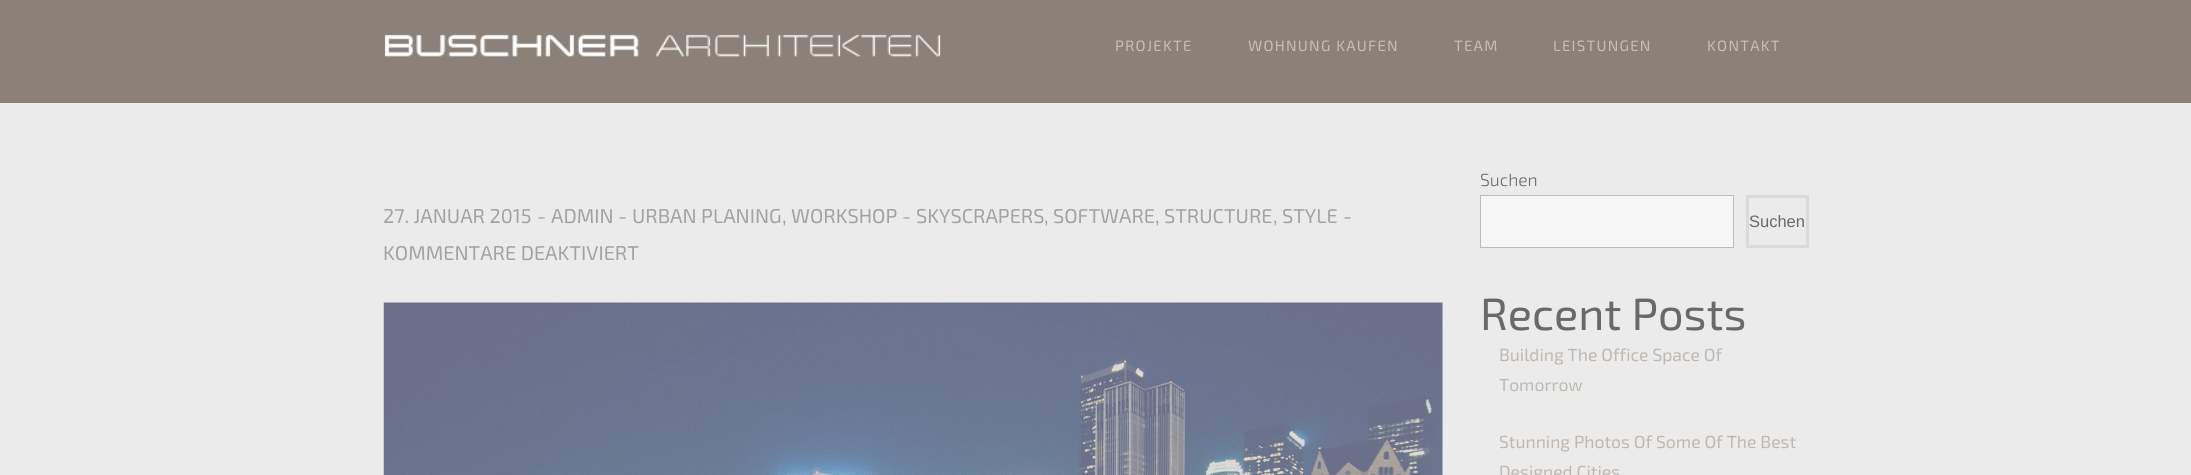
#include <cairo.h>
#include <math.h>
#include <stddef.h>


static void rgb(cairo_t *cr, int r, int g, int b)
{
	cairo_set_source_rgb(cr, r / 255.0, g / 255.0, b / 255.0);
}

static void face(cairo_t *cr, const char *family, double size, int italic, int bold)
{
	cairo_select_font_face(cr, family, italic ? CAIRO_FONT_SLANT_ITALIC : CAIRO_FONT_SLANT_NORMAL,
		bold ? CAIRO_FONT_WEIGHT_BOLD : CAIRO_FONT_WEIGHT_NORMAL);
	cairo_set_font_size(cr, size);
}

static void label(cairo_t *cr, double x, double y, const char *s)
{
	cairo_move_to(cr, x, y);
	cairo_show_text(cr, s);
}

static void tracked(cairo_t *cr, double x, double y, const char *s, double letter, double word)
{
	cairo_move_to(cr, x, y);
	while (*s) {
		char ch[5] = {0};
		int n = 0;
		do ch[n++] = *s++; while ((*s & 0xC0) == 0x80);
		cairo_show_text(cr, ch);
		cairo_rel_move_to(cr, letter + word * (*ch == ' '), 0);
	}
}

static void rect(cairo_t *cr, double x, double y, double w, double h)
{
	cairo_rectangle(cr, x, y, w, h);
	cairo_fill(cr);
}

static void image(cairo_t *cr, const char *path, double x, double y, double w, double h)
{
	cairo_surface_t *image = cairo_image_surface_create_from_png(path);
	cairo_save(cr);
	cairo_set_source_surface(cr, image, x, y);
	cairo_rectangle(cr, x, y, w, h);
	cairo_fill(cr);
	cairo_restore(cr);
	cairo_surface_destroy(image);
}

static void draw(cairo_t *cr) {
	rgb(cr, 235, 235, 235);
	cairo_paint(cr);
	rgb(cr, 139, 129, 120);
	rect(cr, 0, 0, 2191, 103);
	image(cr, "image0.png", 384, 34, 557, 23);
	face(cr, "Exo 2", 15, 0, 0);
	rgb(cr, 197, 191, 186);
	tracked(cr, 1115, 51, "PROJEKTE", 1.25, 0);
	tracked(cr, 1248, 51, "WOHNUNG KAUFEN", 1.25, 0);
	tracked(cr, 1454, 51, "TEAM", 1.25, 0);
	tracked(cr, 1553, 51, "LEISTUNGEN", 1.25, 0);
	tracked(cr, 1707, 51, "KONTAKT", 1.25, 0);
	face(cr, "Exo 2", 20, 0, 0);
	rgb(cr, 162, 162, 162);
	label(cr, 383, 223, "27. JANUAR 2015");
	label(cr, 537, 223, "-");
	label(cr, 551, 223, "ADMIN");
	label(cr, 618, 223, "-");
	label(cr, 632, 223, "URBAN PLANING");
	label(cr, 782, 223, ", WORKSHOP");
	label(cr, 902, 223, "-");
	label(cr, 916, 223, "SKYSCRAPERS");
	label(cr, 1044, 223, ", SOFTWARE");
	label(cr, 1155, 223, ", STRUCTURE");
	label(cr, 1273, 223, ", STYLE");
	label(cr, 1343, 223, "-");
	label(cr, 383, 260, "KOMMENTARE DEAKTIVIERT");
	image(cr, "image1.png", 383, 302, 1060, 173);
	face(cr, "Exo 2 Light", 17.5, 0, 0);
	rgb(cr, 105, 105, 105);
	label(cr, 1480, 186, "Suchen");
	rgb(cr, 246, 246, 246);
	cairo_rectangle(cr, 1480.5, 195.5, 253, 52);
	cairo_fill_preserve(cr);
	rgb(cr, 187, 187, 187);
	cairo_set_line_width(cr, 1);
	cairo_stroke(cr);
	cairo_rectangle(cr, 1747.5, 196.5, 60, 50);
	rgb(cr, 218, 218, 218);
	cairo_set_line_width(cr, 3);
	cairo_stroke(cr);
	face(cr, "Liberation Sans", 16.5, 0, 0);
	rgb(cr, 105, 105, 105);
	label(cr, 1749, 227, "Suchen");
	face(cr, "Exo 2", 45, 0, 0);
	label(cr, 1480, 330, "Recent Posts");
	face(cr, "Exo 2", 17.5, 0, 0);
	rgb(cr, 192, 184, 176);
	label(cr, 1499, 361, "Building The Office Space Of");
	label(cr, 1499, 391, "Tomorrow");
	label(cr, 1499, 448, "Stunning Photos Of Some Of The Best");
	label(cr, 1499, 478, "Designed Cities");
}

int main(void) {
	cairo_surface_t *surface = cairo_image_surface_create(CAIRO_FORMAT_RGB24, 2191, 475);
	cairo_t *cr = cairo_create(surface);
	cairo_font_options_t *options = cairo_font_options_create();
	cairo_font_options_set_hint_metrics(options, CAIRO_HINT_METRICS_OFF);
	cairo_font_options_set_hint_style(options, CAIRO_HINT_STYLE_NONE);
	cairo_set_font_options(cr, options);
	cairo_set_miter_limit(cr, 4);
	draw(cr);
	cairo_surface_write_to_png(surface, "render.png");
	cairo_font_options_destroy(options);
	cairo_destroy(cr);
	cairo_surface_destroy(surface);
	return 0;
}
